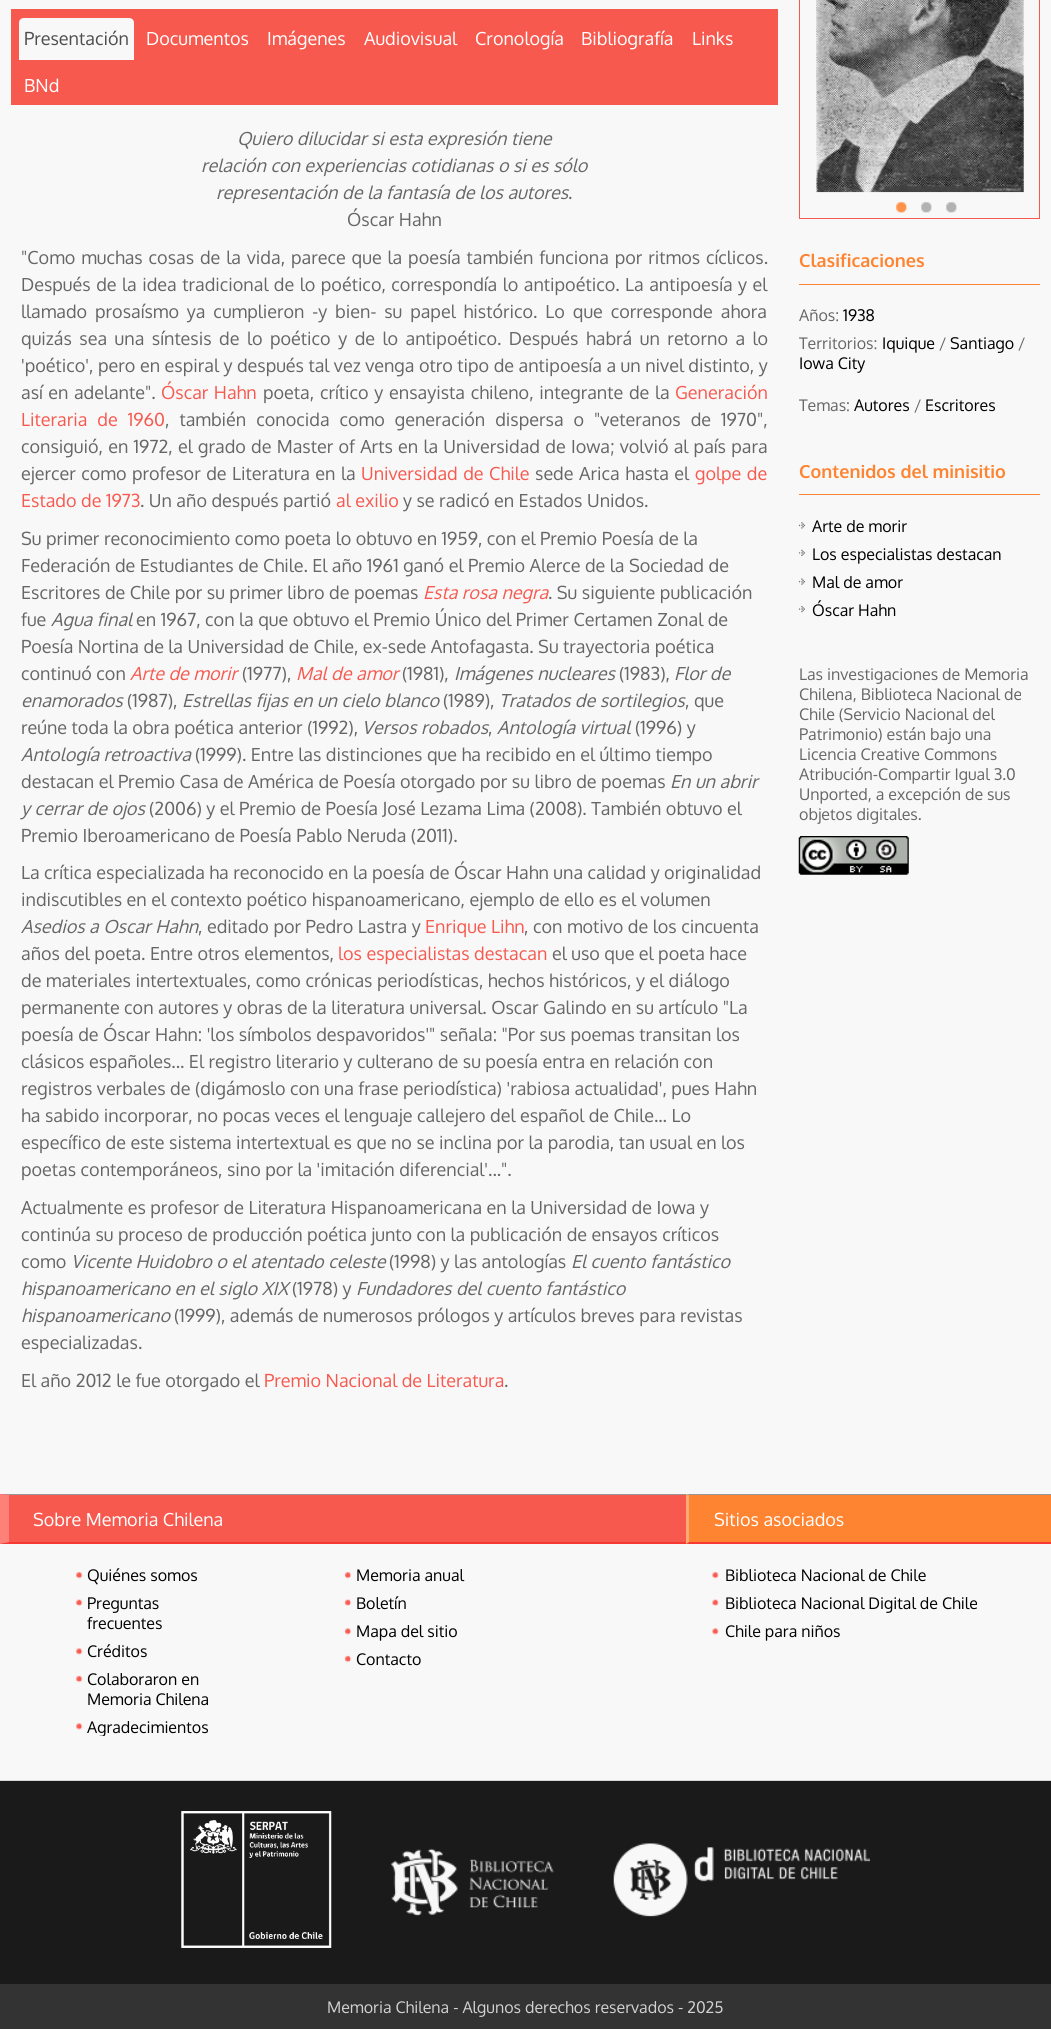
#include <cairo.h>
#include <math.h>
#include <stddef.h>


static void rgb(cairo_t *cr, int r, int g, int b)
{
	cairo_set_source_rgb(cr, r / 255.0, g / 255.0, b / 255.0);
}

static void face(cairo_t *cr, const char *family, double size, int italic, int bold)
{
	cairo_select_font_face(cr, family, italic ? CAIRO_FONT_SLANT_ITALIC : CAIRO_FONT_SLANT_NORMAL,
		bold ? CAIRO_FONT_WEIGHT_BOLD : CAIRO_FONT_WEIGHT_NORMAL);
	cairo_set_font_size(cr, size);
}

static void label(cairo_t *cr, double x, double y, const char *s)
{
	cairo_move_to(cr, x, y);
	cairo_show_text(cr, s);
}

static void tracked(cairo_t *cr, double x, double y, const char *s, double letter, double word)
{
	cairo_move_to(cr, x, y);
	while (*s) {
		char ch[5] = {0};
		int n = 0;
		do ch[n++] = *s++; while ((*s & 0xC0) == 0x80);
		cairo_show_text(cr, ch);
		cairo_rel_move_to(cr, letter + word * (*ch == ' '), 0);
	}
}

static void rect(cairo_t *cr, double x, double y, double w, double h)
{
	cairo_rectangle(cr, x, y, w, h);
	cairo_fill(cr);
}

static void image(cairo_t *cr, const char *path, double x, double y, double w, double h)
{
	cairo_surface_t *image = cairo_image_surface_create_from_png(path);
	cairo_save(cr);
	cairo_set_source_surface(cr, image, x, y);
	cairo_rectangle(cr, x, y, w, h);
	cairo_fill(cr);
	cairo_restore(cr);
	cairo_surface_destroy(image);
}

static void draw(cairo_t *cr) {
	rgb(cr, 248, 248, 248);
	cairo_paint(cr);
	rgb(cr, 247, 89, 79);
	rect(cr, 11, 9, 767, 96);
	rgb(cr, 248, 248, 248);
	cairo_new_path(cr);
	cairo_move_to(cr, 24, 18);
	cairo_line_to(cr, 129, 18);
	cairo_curve_to(cr, 132, 18, 134, 20, 134, 23);
	cairo_line_to(cr, 134, 60);
	cairo_line_to(cr, 19, 60);
	cairo_line_to(cr, 19, 23);
	cairo_curve_to(cr, 19, 20, 21, 18, 24, 18);
	cairo_close_path(cr);
	cairo_fill(cr);
	face(cr, "Oxygen", 18, 0, 0);
	rgb(cr, 77, 77, 77);
	label(cr, 24, 45, "Presentación");
	rgb(cr, 255, 255, 255);
	label(cr, 146, 45, "Documentos");
	label(cr, 267, 45, "Imágenes");
	label(cr, 364, 45, "Audiovisual");
	label(cr, 475, 45, "Cronología");
	label(cr, 581, 45, "Bibliografía");
	label(cr, 692, 45, "Links");
	label(cr, 24, 92, "BNd");
	face(cr, "Oxygen", 18, 1, 0);
	rgb(cr, 102, 102, 102);
	label(cr, 237, 145, "Quiero dilucidar si esta expresión tiene");
	label(cr, 201, 172, "relación con experiencias cotidianas o si es sólo");
	label(cr, 216, 199, "representación de la fantasía de los autores");
	face(cr, "Oxygen", 18, 0, 0);
	label(cr, 568, 199, ".");
	label(cr, 347, 226, "Óscar Hahn");
	tracked(cr, 21, 264, "\"Como muchas cosas de la vida, parece que la poesía también funciona por ritmos cíclicos.", 0, 1.4);
	tracked(cr, 21, 291, "Después de la idea tradicional de lo poético, correspondía lo antipoético. La antipoesía y el", 0, 1);
	tracked(cr, 21, 318, "llamado prosaísmo ya cumplieron -y bien- su papel histórico. Lo que corresponde ahora", 0, 3.4);
	tracked(cr, 21, 345, "quizás sea una síntesis de lo poético y de lo antipoético. Después habrá un retorno a lo", 0, 3);
	label(cr, 21, 372, "'poético', pero en espiral y después tal vez venga otro tipo de antipoesía a un nivel distinto, y");
	tracked(cr, 21, 399, "así en adelante\".", 0, 1);
	rgb(cr, 247, 89, 79);
	tracked(cr, 161, 399, "Óscar Hahn", 0, 1);
	rgb(cr, 102, 102, 102);
	tracked(cr, 263, 399, "poeta, crítico y ensayista chileno, integrante de la", 0, 1.25);
	rgb(cr, 247, 89, 79);
	label(cr, 675, 399, "Generación");
	tracked(cr, 21, 426, "Literaria de 1960", 0, 5.5);
	rgb(cr, 102, 102, 102);
	tracked(cr, 165, 426, ", también conocida como generación dispersa o \"veteranos de 1970\",", 0, 5.5);
	tracked(cr, 21, 453, "consiguió, en 1972, el grado de Master of Arts en la Universidad de Iowa; volvió al país para", 0, 0.75);
	tracked(cr, 21, 480, "ejercer como profesor de Literatura en la", 0, 1);
	rgb(cr, 247, 89, 79);
	tracked(cr, 361, 480, "Universidad de Chile", 0, 1);
	rgb(cr, 102, 102, 102);
	tracked(cr, 535, 480, "sede Arica hasta el", 0, 1);
	rgb(cr, 247, 89, 79);
	tracked(cr, 695, 480, "golpe de", 0, 1);
	label(cr, 21, 507, "Estado de 1973");
	rgb(cr, 102, 102, 102);
	label(cr, 140, 507, ". Un año después partió");
	rgb(cr, 247, 89, 79);
	label(cr, 336, 507, "al exilio");
	rgb(cr, 102, 102, 102);
	label(cr, 403, 507, "y se radicó en Estados Unidos.");
	label(cr, 21, 545, "Su primer reconocimiento como poeta lo obtuvo en 1959, con el Premio Poesía de la");
	label(cr, 21, 572, "Federación de Estudiantes de Chile. El año 1961 ganó el Premio Alerce de la Sociedad de");
	label(cr, 21, 599, "Escritores de Chile por su primer libro de poemas");
	face(cr, "Oxygen", 18, 1, 0);
	rgb(cr, 247, 89, 79);
	label(cr, 423, 599, "Esta rosa negra");
	face(cr, "Oxygen", 18, 0, 0);
	rgb(cr, 102, 102, 102);
	label(cr, 548, 599, ". Su siguiente publicación");
	label(cr, 21, 626, "fue");
	face(cr, "Oxygen", 18, 1, 0);
	label(cr, 51, 626, "Agua final");
	face(cr, "Oxygen", 18, 0, 0);
	label(cr, 136, 626, "en 1967, con la que obtuvo el Premio Único del Primer Certamen Zonal de");
	label(cr, 21, 653, "Poesía Nortina de la Universidad de Chile, ex-sede Antofagasta. Su trayectoria poética");
	label(cr, 21, 680, "continuó con");
	face(cr, "Oxygen", 18, 1, 0);
	rgb(cr, 247, 89, 79);
	label(cr, 130, 680, "Arte de morir");
	face(cr, "Oxygen", 18, 0, 0);
	rgb(cr, 102, 102, 102);
	label(cr, 242, 680, "(1977),");
	face(cr, "Oxygen", 18, 1, 0);
	rgb(cr, 247, 89, 79);
	label(cr, 296, 680, "Mal de amor");
	face(cr, "Oxygen", 18, 0, 0);
	rgb(cr, 102, 102, 102);
	label(cr, 402, 680, "(1981),");
	face(cr, "Oxygen", 18, 1, 0);
	label(cr, 454, 680, "Imágenes nucleares");
	face(cr, "Oxygen", 18, 0, 0);
	label(cr, 619, 680, "(1983),");
	face(cr, "Oxygen", 18, 1, 0);
	label(cr, 674, 680, "Flor de");
	label(cr, 21, 707, "enamorados");
	face(cr, "Oxygen", 18, 0, 0);
	label(cr, 127, 707, "(1987),");
	face(cr, "Oxygen", 18, 1, 0);
	label(cr, 182, 707, "Estrellas fijas en un cielo blanco");
	face(cr, "Oxygen", 18, 0, 0);
	label(cr, 443, 707, "(1989),");
	face(cr, "Oxygen", 18, 1, 0);
	label(cr, 499, 707, "Tratados de sortilegios");
	face(cr, "Oxygen", 18, 0, 0);
	label(cr, 685, 707, ", que");
	label(cr, 21, 734, "reúne toda la obra poética anterior (1992),");
	face(cr, "Oxygen", 18, 1, 0);
	label(cr, 362, 734, "Versos robados");
	face(cr, "Oxygen", 18, 0, 0);
	label(cr, 488, 734, ",");
	face(cr, "Oxygen", 18, 1, 0);
	label(cr, 497, 734, "Antología virtual");
	face(cr, "Oxygen", 18, 0, 0);
	label(cr, 635, 734, "(1996) y");
	face(cr, "Oxygen", 18, 1, 0);
	label(cr, 21, 761, "Antología retroactiva");
	face(cr, "Oxygen", 18, 0, 0);
	label(cr, 195, 761, "(1999). Entre las distinciones que ha recibido en el último tiempo");
	label(cr, 21, 788, "destacan el Premio Casa de América de Poesía otorgado por su libro de poemas");
	face(cr, "Oxygen", 18, 1, 0);
	label(cr, 670, 788, "En un abrir");
	label(cr, 21, 815, "y cerrar de ojos");
	face(cr, "Oxygen", 18, 0, 0);
	label(cr, 149, 815, "(2006) y el Premio de Poesía José Lezama Lima (2008). También obtuvo el");
	label(cr, 21, 842, "Premio Iberoamericano de Poesía Pablo Neruda (2011).");
	label(cr, 21, 879, "La crítica especializada ha reconocido en la poesía de Óscar Hahn una calidad y originalidad");
	label(cr, 21, 906, "indiscutibles en el contexto poético hispanoamericano, ejemplo de ello es el volumen");
	face(cr, "Oxygen", 18, 1, 0);
	label(cr, 21, 933, "Asedios a Oscar Hahn");
	face(cr, "Oxygen", 18, 0, 0);
	label(cr, 198, 933, ", editado por Pedro Lastra y");
	rgb(cr, 247, 89, 79);
	label(cr, 425, 933, "Enrique Lihn");
	rgb(cr, 102, 102, 102);
	label(cr, 524, 933, ", con motivo de los cincuenta");
	label(cr, 21, 960, "años del poeta. Entre otros elementos,");
	rgb(cr, 247, 89, 79);
	label(cr, 338, 960, "los especialistas destacan");
	rgb(cr, 102, 102, 102);
	label(cr, 552, 960, "el uso que el poeta hace");
	label(cr, 21, 987, "de materiales intertextuales, como crónicas periodísticas, hechos históricos, y el diálogo");
	label(cr, 21, 1014, "permanente con autores y obras de la literatura universal. Oscar Galindo en su artículo \"La");
	label(cr, 21, 1041, "poesía de Óscar Hahn: 'los símbolos despavoridos'\" señala: \"Por sus poemas transitan los");
	label(cr, 21, 1068, "clásicos españoles... El registro literario y culterano de su poesía entra en relación con");
	label(cr, 21, 1095, "registros verbales de (digámoslo con una frase periodística) 'rabiosa actualidad', pues Hahn");
	label(cr, 21, 1122, "ha sabido incorporar, no pocas veces el lenguaje callejero del español de Chile... Lo");
	label(cr, 21, 1149, "específico de este sistema intertextual es que no se inclina por la parodia, tan usual en los");
	label(cr, 21, 1176, "poetas contemporáneos, sino por la 'imitación diferencial'...\".");
	label(cr, 21, 1214, "Actualmente es profesor de Literatura Hispanoamericana en la Universidad de Iowa y");
	label(cr, 21, 1241, "continúa su proceso de producción poética junto con la publicación de ensayos críticos");
	label(cr, 21, 1268, "como");
	face(cr, "Oxygen", 18, 1, 0);
	label(cr, 71, 1268, "Vicente Huidobro o el atentado celeste");
	face(cr, "Oxygen", 18, 0, 0);
	label(cr, 389, 1268, "(1998) y las antologías");
	face(cr, "Oxygen", 18, 1, 0);
	label(cr, 571, 1268, "El cuento fantástico");
	label(cr, 21, 1295, "hispanoamericano en el siglo XIX");
	face(cr, "Oxygen", 18, 0, 0);
	label(cr, 292, 1295, "(1978) y");
	face(cr, "Oxygen", 18, 1, 0);
	label(cr, 356, 1295, "Fundadores del cuento fantástico");
	label(cr, 21, 1322, "hispanoamericano");
	face(cr, "Oxygen", 18, 0, 0);
	label(cr, 174, 1322, "(1999), además de numerosos prólogos y artículos breves para revistas");
	label(cr, 21, 1349, "especializadas.");
	label(cr, 21, 1387, "El año 2012 le fue otorgado el");
	rgb(cr, 247, 89, 79);
	label(cr, 264, 1387, "Premio Nacional de Literatura");
	rgb(cr, 102, 102, 102);
	label(cr, 504, 1387, ".");
	cairo_rectangle(cr, 799.5, -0.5, 240, 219);
	rgb(cr, 247, 89, 79);
	cairo_set_line_width(cr, 1);
	cairo_stroke(cr);
	image(cr, "image0.png", 816, 0, 208, 193);
	image(cr, "image1.png", 896, 202, 11, 11);
	image(cr, "image2.png", 921, 202, 11, 11);
	image(cr, "image2.png", 946, 202, 11, 11);
	rgb(cr, 255, 132, 49);
	rect(cr, 799, 284, 241, 1);
	face(cr, "Oxygen", 18, 0, 1);
	label(cr, 799, 267, "Clasificaciones");
	face(cr, "Oxygen", 16, 0, 0);
	rgb(cr, 102, 102, 102);
	label(cr, 799, 321, "Años:");
	rgb(cr, 0, 0, 0);
	label(cr, 843, 321, "1938");
	rgb(cr, 102, 102, 102);
	label(cr, 799, 349, "Territorios:");
	rgb(cr, 0, 0, 0);
	label(cr, 882, 349, "Iquique");
	rgb(cr, 102, 102, 102);
	label(cr, 939, 349, "/");
	rgb(cr, 0, 0, 0);
	label(cr, 950, 349, "Santiago");
	rgb(cr, 102, 102, 102);
	label(cr, 1018, 349, "/");
	rgb(cr, 0, 0, 0);
	label(cr, 799, 369, "Iowa City");
	rgb(cr, 102, 102, 102);
	label(cr, 799, 411, "Temas:");
	rgb(cr, 0, 0, 0);
	label(cr, 854, 411, "Autores");
	rgb(cr, 102, 102, 102);
	label(cr, 914, 411, "/");
	rgb(cr, 0, 0, 0);
	label(cr, 925, 411, "Escritores");
	rgb(cr, 255, 132, 49);
	rect(cr, 799, 494, 241, 1);
	face(cr, "Oxygen", 18, 0, 1);
	label(cr, 799, 478, "Contenidos del minisitio");
	image(cr, "image3.png", 798, 522, 7, 7);
	face(cr, "Oxygen", 16, 0, 0);
	rgb(cr, 0, 0, 0);
	label(cr, 812, 532, "Arte de morir");
	image(cr, "image4.png", 798, 549, 7, 7);
	label(cr, 812, 560, "Los especialistas destacan");
	image(cr, "image5.png", 798, 578, 7, 7);
	label(cr, 812, 588, "Mal de amor");
	image(cr, "image6.png", 798, 606, 7, 7);
	label(cr, 812, 616, "Óscar Hahn");
	rgb(cr, 102, 102, 102);
	label(cr, 799, 680, "Las investigaciones de Memoria");
	label(cr, 799, 700, "Chilena, Biblioteca Nacional de");
	label(cr, 799, 720, "Chile (Servicio Nacional del");
	label(cr, 799, 740, "Patrimonio) están bajo una");
	label(cr, 799, 760, "Licencia Creative Commons");
	label(cr, 799, 780, "Atribución-Compartir Igual 3.0");
	label(cr, 799, 800, "Unported, a excepción de sus");
	label(cr, 799, 820, "objetos digitales.");
	image(cr, "image7.png", 798, 836, 111, 39);
	rgb(cr, 247, 89, 79);
	rect(cr, 0, 1494, 686, 50);
	rgb(cr, 152, 152, 152);
	cairo_new_path(cr);
	cairo_move_to(cr, -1, 1494);
	cairo_line_to(cr, 690, 1494);
	cairo_line_to(cr, 690, 1495);
	cairo_line_to(cr, 9, 1495);
	cairo_close_path(cr);
	cairo_fill(cr);
	rgb(cr, 247, 57, 52);
	cairo_new_path(cr);
	cairo_move_to(cr, 690, 1544);
	cairo_line_to(cr, -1, 1544);
	cairo_line_to(cr, 9, 1542);
	cairo_line_to(cr, 690, 1542);
	cairo_close_path(cr);
	cairo_fill(cr);
	rgb(cr, 254, 129, 121);
	cairo_new_path(cr);
	cairo_move_to(cr, -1, 1544);
	cairo_line_to(cr, -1, 1494);
	cairo_line_to(cr, 9, 1495);
	cairo_line_to(cr, 9, 1542);
	cairo_close_path(cr);
	cairo_fill(cr);
	face(cr, "Oxygen", 18, 0, 0);
	rgb(cr, 255, 255, 255);
	label(cr, 33, 1526, "Sobre Memoria Chilena");
	image(cr, "image8.png", 76, 1572, 7, 7);
	face(cr, "Oxygen", 16, 0, 0);
	rgb(cr, 0, 0, 0);
	label(cr, 87, 1581, "Quiénes somos");
	image(cr, "image9.png", 76, 1599, 7, 7);
	label(cr, 87, 1609, "Preguntas");
	label(cr, 87, 1629, "frecuentes");
	image(cr, "image10.png", 76, 1648, 7, 7);
	label(cr, 87, 1657, "Créditos");
	image(cr, "image11.png", 76, 1675, 7, 8);
	label(cr, 87, 1685, "Colaboraron en");
	label(cr, 87, 1705, "Memoria Chilena");
	image(cr, "image10.png", 76, 1723, 7, 7);
	cairo_save(cr);
	cairo_rectangle(cr, 75, 1709, 155, 27);
	cairo_clip(cr);
	label(cr, 87, 1733, "Agradecimientos");
	cairo_restore(cr);
	image(cr, "image12.png", 344, 1572, 8, 7);
	label(cr, 356, 1581, "Memoria anual");
	image(cr, "image13.png", 344, 1599, 8, 7);
	label(cr, 356, 1609, "Boletín");
	image(cr, "image14.png", 344, 1628, 8, 7);
	label(cr, 356, 1637, "Mapa del sitio");
	image(cr, "image15.png", 344, 1655, 8, 8);
	label(cr, 356, 1665, "Contacto");
	rgb(cr, 255, 132, 49);
	rect(cr, 686, 1494, 365, 50);
	rgb(cr, 152, 152, 152);
	cairo_new_path(cr);
	cairo_move_to(cr, 686, 1494);
	cairo_line_to(cr, 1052, 1494);
	cairo_line_to(cr, 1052, 1495);
	cairo_line_to(cr, 689, 1495);
	cairo_close_path(cr);
	cairo_fill(cr);
	rgb(cr, 247, 57, 52);
	cairo_new_path(cr);
	cairo_move_to(cr, 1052, 1544);
	cairo_line_to(cr, 686, 1544);
	cairo_line_to(cr, 689, 1542);
	cairo_line_to(cr, 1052, 1542);
	cairo_close_path(cr);
	cairo_fill(cr);
	rgb(cr, 255, 170, 116);
	cairo_new_path(cr);
	cairo_move_to(cr, 686, 1544);
	cairo_line_to(cr, 686, 1494);
	cairo_line_to(cr, 689, 1495);
	cairo_line_to(cr, 689, 1542);
	cairo_close_path(cr);
	cairo_fill(cr);
	face(cr, "Oxygen", 18, 0, 0);
	rgb(cr, 255, 255, 255);
	label(cr, 714, 1526, "Sitios asociados");
	image(cr, "image16.png", 712, 1572, 7, 7);
	face(cr, "Oxygen", 16, 0, 0);
	rgb(cr, 0, 0, 0);
	label(cr, 725, 1581, "Biblioteca Nacional de Chile");
	image(cr, "image17.png", 712, 1599, 7, 7);
	label(cr, 725, 1609, "Biblioteca Nacional Digital de Chile");
	image(cr, "image18.png", 712, 1628, 7, 7);
	label(cr, 725, 1637, "Chile para niños");
	rgb(cr, 26, 26, 26);
	rect(cr, 0, 1781, 1051, 203);
	rgb(cr, 215, 215, 215);
	rect(cr, 0, 1780, 1051, 1);
	image(cr, "image19.png", 181, 1811, 151, 137);
	image(cr, "image20.png", 391, 1848, 163, 68);
	image(cr, "image21.png", 613, 1843, 257, 74);
	rgb(cr, 51, 51, 51);
	rect(cr, 0, 1984, 1051, 45);
	rgb(cr, 210, 210, 210);
	label(cr, 327, 2013, "Memoria Chilena - Algunos derechos reservados - 2025");
}

int main(void) {
	cairo_surface_t *surface = cairo_image_surface_create(CAIRO_FORMAT_RGB24, 1051, 2029);
	cairo_t *cr = cairo_create(surface);
	cairo_font_options_t *options = cairo_font_options_create();
	cairo_font_options_set_hint_metrics(options, CAIRO_HINT_METRICS_OFF);
	cairo_font_options_set_hint_style(options, CAIRO_HINT_STYLE_NONE);
	cairo_set_font_options(cr, options);
	cairo_set_miter_limit(cr, 4);
	draw(cr);
	cairo_surface_write_to_png(surface, "render.png");
	cairo_font_options_destroy(options);
	cairo_destroy(cr);
	cairo_surface_destroy(surface);
	return 0;
}
